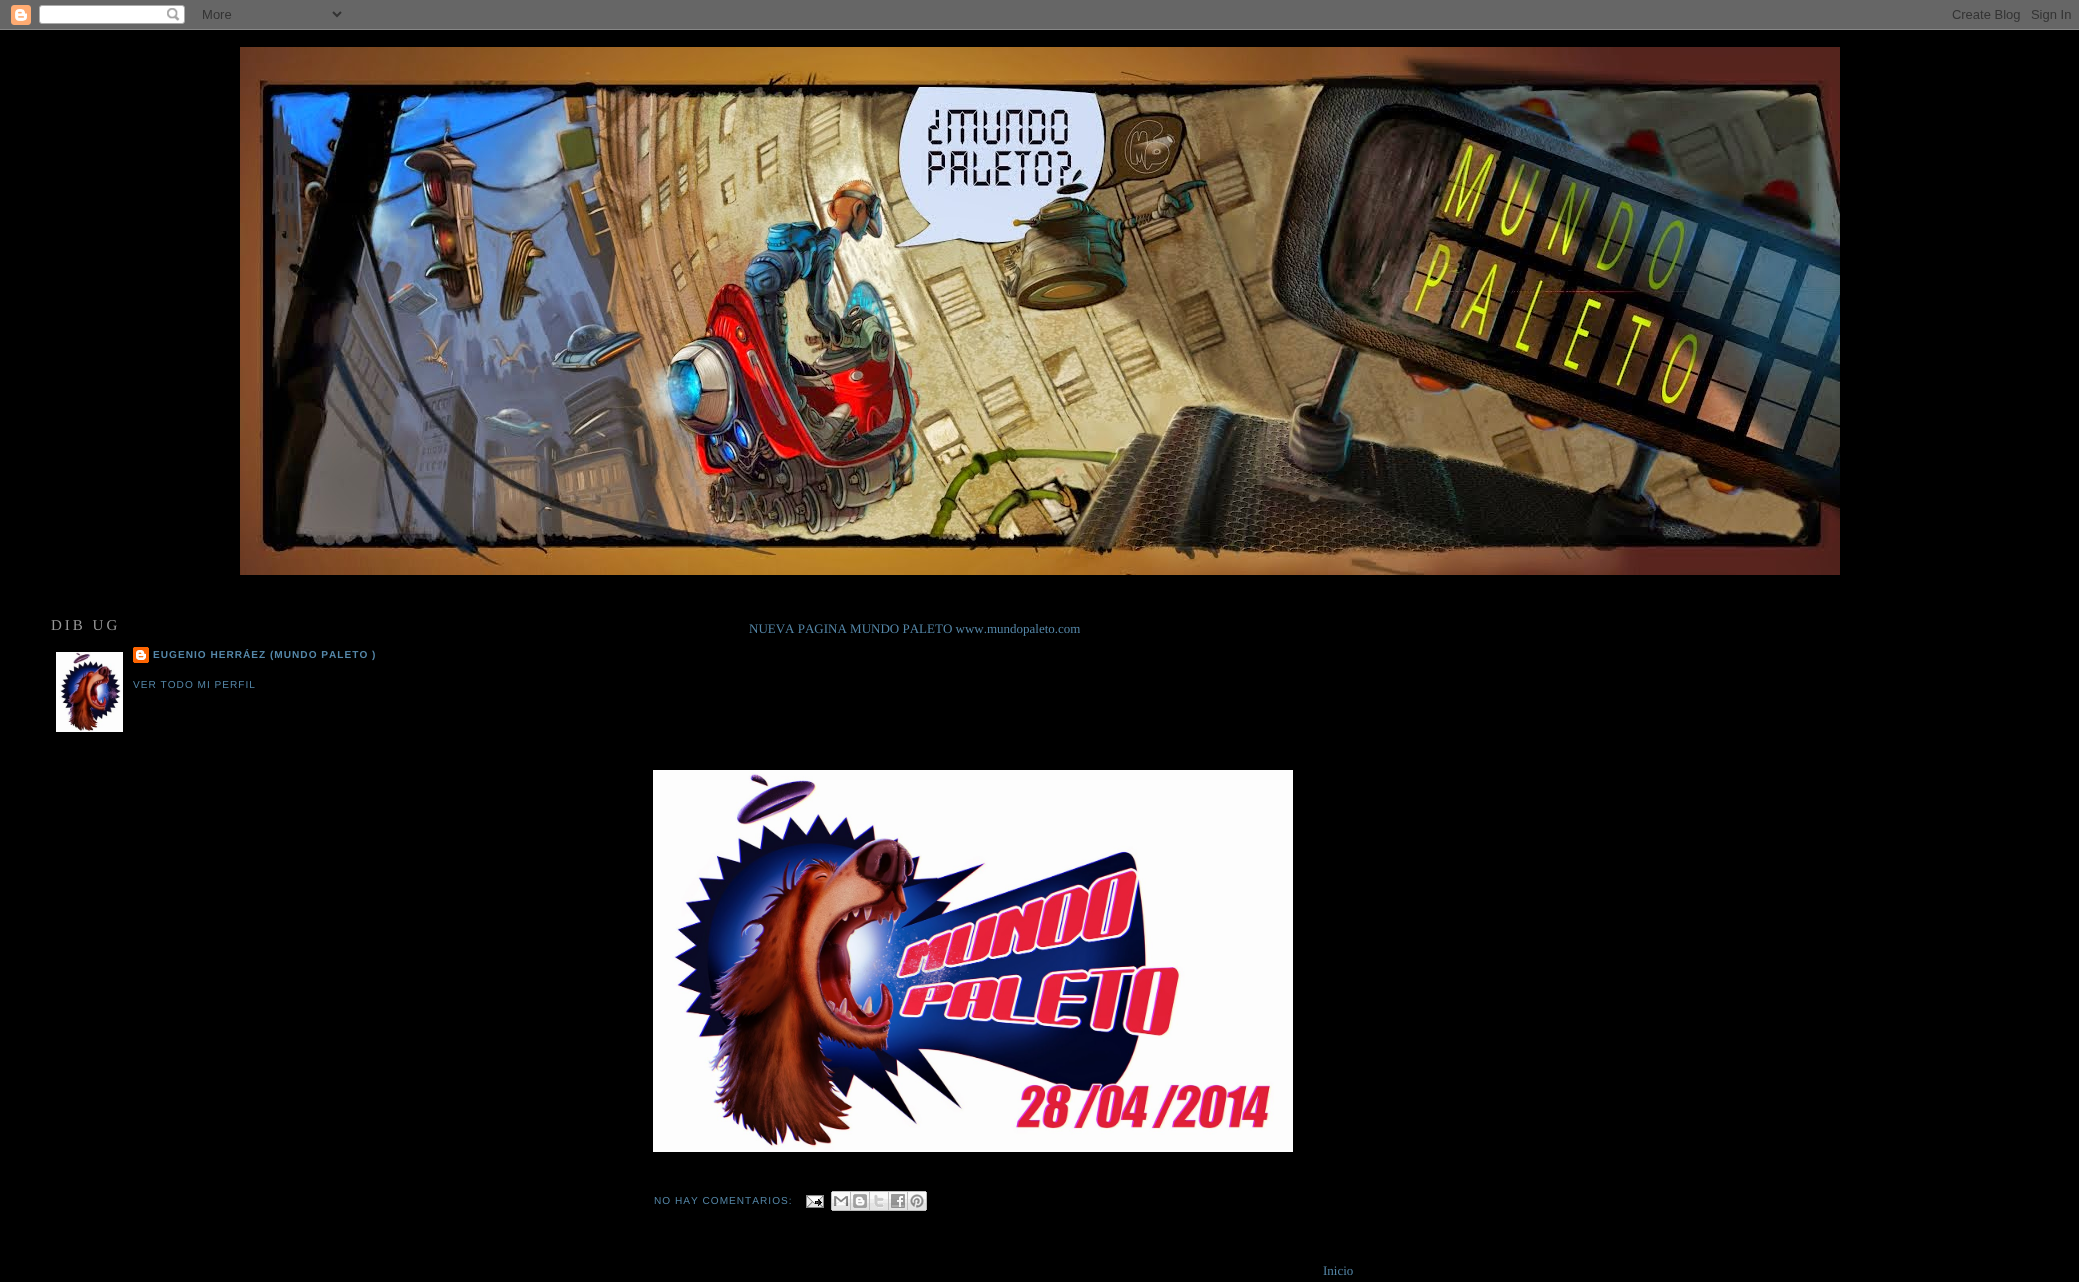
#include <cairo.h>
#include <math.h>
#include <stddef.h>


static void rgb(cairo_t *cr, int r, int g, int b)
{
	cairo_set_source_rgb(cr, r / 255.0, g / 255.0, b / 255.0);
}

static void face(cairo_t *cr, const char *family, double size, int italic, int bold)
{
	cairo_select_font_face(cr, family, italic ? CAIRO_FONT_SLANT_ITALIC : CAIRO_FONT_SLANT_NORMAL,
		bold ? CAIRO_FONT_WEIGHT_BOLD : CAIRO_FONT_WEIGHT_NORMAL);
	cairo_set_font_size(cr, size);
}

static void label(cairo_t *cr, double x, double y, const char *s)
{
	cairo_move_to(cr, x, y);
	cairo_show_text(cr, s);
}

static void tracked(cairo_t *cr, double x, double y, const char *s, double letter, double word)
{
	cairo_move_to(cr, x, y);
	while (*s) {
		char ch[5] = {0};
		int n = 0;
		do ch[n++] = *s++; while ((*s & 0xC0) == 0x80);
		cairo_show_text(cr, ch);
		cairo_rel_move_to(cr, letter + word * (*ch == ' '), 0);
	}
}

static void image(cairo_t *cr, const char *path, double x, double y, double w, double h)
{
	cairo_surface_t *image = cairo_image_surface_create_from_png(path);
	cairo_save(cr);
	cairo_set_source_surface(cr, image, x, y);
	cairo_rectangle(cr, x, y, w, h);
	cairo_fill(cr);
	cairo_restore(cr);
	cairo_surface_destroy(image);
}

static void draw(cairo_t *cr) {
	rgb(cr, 0, 0, 0);
	cairo_paint(cr);
	image(cr, "image0.png", 0, 0, 2079, 30);
	image(cr, "image1.png", 240, 47, 1600, 528);
	face(cr, "Liberation Serif", 15, 0, 0);
	rgb(cr, 153, 153, 153);
	tracked(cr, 51, 630, "DIB UG", 3, 0);
	image(cr, "image2.png", 56, 652, 67, 80);
	image(cr, "image3.png", 133, 647, 16, 16);
	face(cr, "Liberation Sans", 10.1, 0, 1);
	rgb(cr, 85, 136, 170);
	tracked(cr, 153, 658, "EUGENIO HERRÁEZ (MUNDO PALETO )", 1, 0);
	face(cr, "Liberation Sans", 10.1, 0, 0);
	tracked(cr, 133, 688, "VER TODO MI PERFIL", 1, 0);
	face(cr, "Liberation Serif", 13, 0, 0);
	label(cr, 749, 633, "NUEVA PAGINA MUNDO PALETO www.mundopaleto.com");
	image(cr, "image4.png", 653, 770, 640, 382);
	face(cr, "Liberation Sans", 10.1, 0, 0);
	tracked(cr, 654, 1204, "NO HAY COMENTARIOS:", 1, 0);
	image(cr, "image5.png", 806, 1195, 18, 13);
	image(cr, "image6.png", 831, 1191, 20, 20);
	image(cr, "image7.png", 851, 1191, 19, 20);
	image(cr, "image8.png", 870, 1191, 19, 20);
	image(cr, "image9.png", 889, 1191, 19, 20);
	image(cr, "image10.png", 908, 1191, 19, 20);
	face(cr, "Liberation Serif", 13, 0, 0);
	label(cr, 1323, 1275, "Inicio");
}

int main(void) {
	cairo_surface_t *surface = cairo_image_surface_create(CAIRO_FORMAT_RGB24, 2079, 1282);
	cairo_t *cr = cairo_create(surface);
	cairo_font_options_t *options = cairo_font_options_create();
	cairo_font_options_set_hint_metrics(options, CAIRO_HINT_METRICS_OFF);
	cairo_font_options_set_hint_style(options, CAIRO_HINT_STYLE_NONE);
	cairo_set_font_options(cr, options);
	cairo_set_miter_limit(cr, 4);
	draw(cr);
	cairo_surface_write_to_png(surface, "render.png");
	cairo_font_options_destroy(options);
	cairo_destroy(cr);
	cairo_surface_destroy(surface);
	return 0;
}
